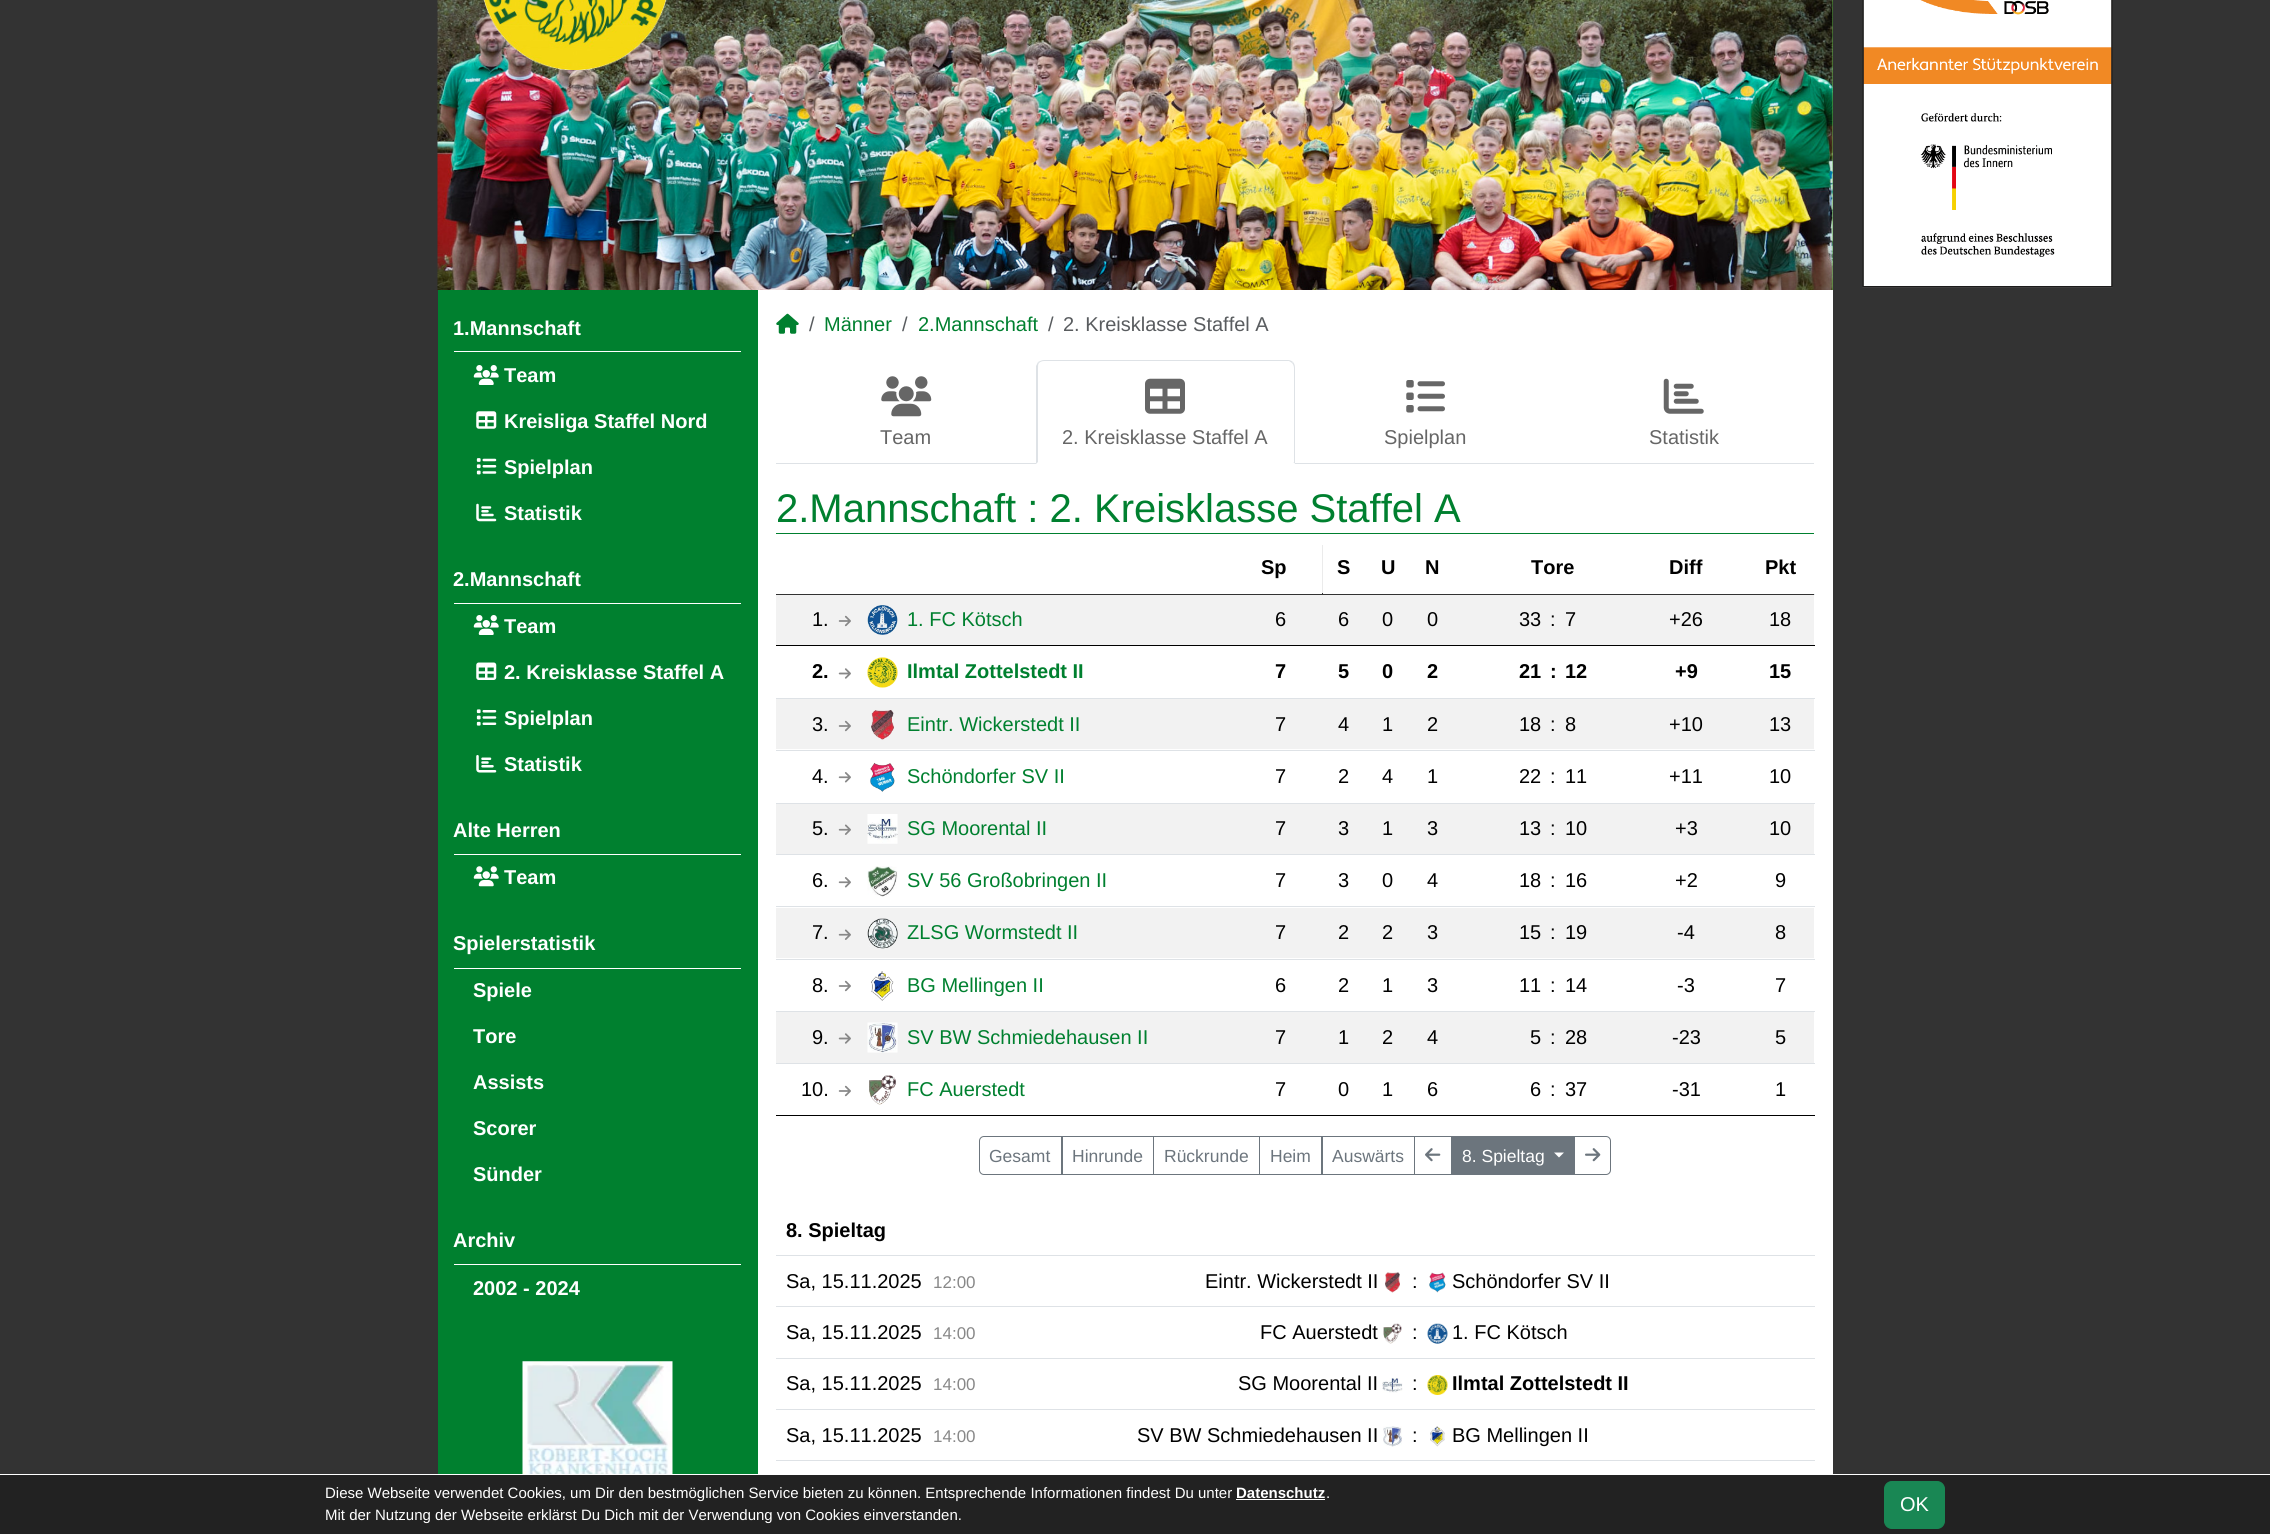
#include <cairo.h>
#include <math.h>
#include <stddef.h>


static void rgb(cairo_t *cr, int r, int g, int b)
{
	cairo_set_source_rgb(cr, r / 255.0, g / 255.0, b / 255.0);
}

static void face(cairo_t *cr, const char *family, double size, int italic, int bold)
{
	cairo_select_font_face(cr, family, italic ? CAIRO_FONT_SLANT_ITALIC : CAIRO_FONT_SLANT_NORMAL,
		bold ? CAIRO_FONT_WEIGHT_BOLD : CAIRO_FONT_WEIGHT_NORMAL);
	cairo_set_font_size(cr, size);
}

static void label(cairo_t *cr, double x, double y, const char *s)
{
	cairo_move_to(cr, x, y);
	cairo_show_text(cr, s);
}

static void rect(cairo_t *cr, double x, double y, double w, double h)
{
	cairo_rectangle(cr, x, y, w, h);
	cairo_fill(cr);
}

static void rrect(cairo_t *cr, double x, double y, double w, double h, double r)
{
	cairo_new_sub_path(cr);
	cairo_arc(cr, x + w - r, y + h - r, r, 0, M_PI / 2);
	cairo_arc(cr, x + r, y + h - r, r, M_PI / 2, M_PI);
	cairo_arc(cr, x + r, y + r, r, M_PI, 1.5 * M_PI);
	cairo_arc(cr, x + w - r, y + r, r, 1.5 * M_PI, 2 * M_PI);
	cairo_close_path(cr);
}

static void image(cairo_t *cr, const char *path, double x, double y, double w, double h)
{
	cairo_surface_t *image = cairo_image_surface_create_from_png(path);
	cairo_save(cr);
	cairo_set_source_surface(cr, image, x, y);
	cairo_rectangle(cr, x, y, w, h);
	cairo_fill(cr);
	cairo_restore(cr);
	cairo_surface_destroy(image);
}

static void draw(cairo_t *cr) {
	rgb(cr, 51, 51, 51);
	cairo_paint(cr);
	rgb(cr, 98, 180, 74);
	rect(cr, 1832, 0, 1, 290);
	image(cr, "image0.png", 437, 0, 1396, 290);
	image(cr, "image1.png", 483, 0, 184, 70);
	image(cr, "image2.png", 1862, 0, 251, 288);
	rgb(cr, 255, 255, 255);
	rect(cr, 758, 290, 1075, 1184);
	rgb(cr, 0, 128, 47);
	rect(cr, 438, 290, 320, 1184);
	rgb(cr, 255, 255, 255);
	rect(cr, 454, 351, 287, 1);
	face(cr, "Liberation Sans", 20, 0, 1);
	label(cr, 453, 335, "1.Mannschaft");
	image(cr, "image3.png", 473, 365, 26, 20);
	label(cr, 504, 382, "Team");
	image(cr, "image4.png", 476, 411, 21, 18);
	label(cr, 504, 428, "Kreisliga Staffel Nord");
	image(cr, "image5.png", 476, 458, 21, 17);
	label(cr, 504, 474, "Spielplan");
	image(cr, "image6.png", 476, 503, 21, 19);
	label(cr, 504, 520, "Statistik");
	rect(cr, 454, 603, 287, 1);
	label(cr, 453, 586, "2.Mannschaft");
	image(cr, "image3.png", 473, 615, 26, 20);
	label(cr, 504, 633, "Team");
	image(cr, "image7.png", 476, 662, 21, 18);
	label(cr, 504, 679, "2. Kreisklasse Staffel A");
	image(cr, "image8.png", 476, 709, 21, 17);
	label(cr, 504, 725, "Spielplan");
	image(cr, "image9.png", 476, 755, 21, 18);
	label(cr, 504, 771, "Statistik");
	rect(cr, 454, 854, 287, 1);
	label(cr, 453, 837, "Alte Herren");
	image(cr, "image10.png", 473, 866, 26, 21);
	label(cr, 504, 884, "Team");
	rect(cr, 454, 968, 287, 1);
	label(cr, 453, 950, "Spielerstatistik");
	label(cr, 473, 997, "Spiele");
	label(cr, 473, 1043, "Tore");
	label(cr, 473, 1089, "Assists");
	label(cr, 473, 1135, "Scorer");
	label(cr, 473, 1181, "Sünder");
	rect(cr, 454, 1264, 287, 1);
	label(cr, 453, 1247, "Archiv");
	label(cr, 473, 1295, "2002 - 2024");
	image(cr, "image11.png", 522, 1361, 151, 113);
	image(cr, "image12.png", 776, 313, 23, 21);
	face(cr, "Liberation Sans", 20, 0, 0);
	rgb(cr, 89, 92, 95);
	label(cr, 809, 331, "/");
	rgb(cr, 0, 128, 47);
	label(cr, 824, 331, "Männer");
	rgb(cr, 89, 92, 95);
	label(cr, 902, 331, "/");
	rgb(cr, 0, 128, 47);
	label(cr, 918, 331, "2.Mannschaft");
	rgb(cr, 89, 92, 95);
	label(cr, 1048, 331, "/");
	label(cr, 1063, 331, "2. Kreisklasse Staffel A");
	rgb(cr, 222, 226, 230);
	rect(cr, 776, 463, 1038, 1);
	image(cr, "image13.png", 881, 376, 51, 41);
	rgb(cr, 102, 102, 102);
	label(cr, 880, 444, "Team");
	rgb(cr, 255, 255, 255);
	cairo_new_path(cr);
	cairo_move_to(cr, 1044, 360);
	cairo_line_to(cr, 1287, 360);
	cairo_curve_to(cr, 1291.5, 360, 1295, 363.5, 1295, 368);
	cairo_line_to(cr, 1295, 464);
	cairo_line_to(cr, 1036, 464);
	cairo_line_to(cr, 1036, 368);
	cairo_curve_to(cr, 1036, 363.5, 1039.5, 360, 1044, 360);
	cairo_close_path(cr);
	cairo_fill(cr);
	rgb(cr, 222, 226, 230);
	cairo_new_path(cr);
	cairo_move_to(cr, 1044, 360);
	cairo_curve_to(cr, 1042, 360, 1040, 361, 1038, 362);
	cairo_line_to(cr, 1039, 363);
	cairo_curve_to(cr, 1040, 362, 1042, 361, 1044, 361);
	cairo_line_to(cr, 1289, 361);
	cairo_line_to(cr, 1292, 363);
	cairo_line_to(cr, 1293, 362);
	cairo_curve_to(cr, 1292, 361, 1290, 360, 1288, 360);
	cairo_close_path(cr);
	cairo_fill(cr);
	cairo_new_path(cr);
	cairo_move_to(cr, 1295, 464);
	cairo_line_to(cr, 1295, 368);
	cairo_curve_to(cr, 1295, 365, 1294, 363, 1293, 362);
	cairo_line_to(cr, 1292, 363);
	cairo_curve_to(cr, 1293, 364, 1294, 366, 1294, 368);
	cairo_line_to(cr, 1294, 462);
	cairo_line_to(cr, 1293, 462);
	cairo_close_path(cr);
	cairo_fill(cr);
	rgb(cr, 255, 255, 255);
	cairo_new_path(cr);
	cairo_move_to(cr, 1295, 464);
	cairo_line_to(cr, 1293, 462);
	cairo_line_to(cr, 1038, 462);
	cairo_line_to(cr, 1036, 464);
	cairo_close_path(cr);
	cairo_fill(cr);
	rgb(cr, 222, 226, 230);
	cairo_new_path(cr);
	cairo_move_to(cr, 1036, 464);
	cairo_line_to(cr, 1036, 366);
	cairo_line_to(cr, 1038, 362);
	cairo_line_to(cr, 1039, 363);
	cairo_curve_to(cr, 1038, 364, 1038, 366, 1038, 368);
	cairo_line_to(cr, 1038, 462);
	cairo_close_path(cr);
	cairo_fill(cr);
	image(cr, "image14.png", 1145, 378, 40, 36);
	rgb(cr, 102, 102, 102);
	label(cr, 1062, 444, "2. Kreisklasse Staffel A");
	image(cr, "image15.png", 1406, 380, 39, 33);
	label(cr, 1384, 444, "Spielplan");
	image(cr, "image16.png", 1663, 378, 41, 36);
	label(cr, 1649, 444, "Statistik");
	rgb(cr, 0, 128, 47);
	rect(cr, 776, 533, 1038, 1);
	face(cr, "Liberation Sans", 40, 0, 0);
	label(cr, 776, 522, "2.Mannschaft : 2. Kreisklasse Staffel A");
	rgb(cr, 51, 51, 51);
	rect(cr, 1238, 594, 58, 1);
	face(cr, "Liberation Sans", 20, 0, 1);
	rgb(cr, 0, 0, 0);
	label(cr, 1261, 574, "Sp");
	rgb(cr, 51, 51, 51);
	cairo_new_path(cr);
	cairo_move_to(cr, 1296, 545);
	cairo_line_to(cr, 1296, 595);
	cairo_line_to(cr, 1323, 595);
	cairo_line_to(cr, 1323, 545);
	cairo_line_to(cr, 1322, 545);
	cairo_line_to(cr, 1322, 594);
	cairo_line_to(cr, 1296, 594);
	cairo_close_path(cr);
	cairo_fill(cr);
	cairo_set_source_rgba(cr, 1, 1, 1, 0.9);
	rect(cr, 1322, 545, 1, 48);
	rgb(cr, 51, 51, 51);
	rect(cr, 1323, 594, 158, 1);
	rgb(cr, 0, 0, 0);
	label(cr, 1337, 574, "S");
	label(cr, 1381, 574, "U");
	label(cr, 1425, 574, "N");
	rgb(cr, 51, 51, 51);
	cairo_new_path(cr);
	cairo_move_to(cr, 1481, 545);
	cairo_line_to(cr, 1481, 595);
	cairo_line_to(cr, 1625, 595);
	cairo_line_to(cr, 1625, 594);
	cairo_line_to(cr, 1481, 594);
	cairo_close_path(cr);
	cairo_fill(cr);
	rgb(cr, 0, 0, 0);
	label(cr, 1531, 574, "Tore");
	rgb(cr, 51, 51, 51);
	cairo_new_path(cr);
	cairo_move_to(cr, 1651, 545);
	cairo_line_to(cr, 1651, 595);
	cairo_line_to(cr, 1721, 595);
	cairo_line_to(cr, 1721, 594);
	cairo_line_to(cr, 1651, 594);
	cairo_close_path(cr);
	cairo_fill(cr);
	rgb(cr, 0, 0, 0);
	label(cr, 1669, 574, "Diff");
	rgb(cr, 222, 226, 230);
	rect(cr, 1814, 594, 1, 1);
	rgb(cr, 51, 51, 51);
	cairo_new_path(cr);
	cairo_move_to(cr, 1748, 594);
	cairo_line_to(cr, 1748, 595);
	cairo_line_to(cr, 1814, 595);
	cairo_line_to(cr, 1814, 545);
	cairo_line_to(cr, 1814, 594);
	cairo_close_path(cr);
	cairo_fill(cr);
	rgb(cr, 0, 0, 0);
	label(cr, 1765, 574, "Pkt");
	rgb(cr, 51, 51, 51);
	cairo_new_path(cr);
	cairo_move_to(cr, 776, 545);
	cairo_line_to(cr, 776, 595);
	cairo_line_to(cr, 1238, 595);
	cairo_line_to(cr, 1238, 545);
	cairo_line_to(cr, 1238, 594);
	cairo_line_to(cr, 776, 594);
	cairo_close_path(cr);
	cairo_fill(cr);
	rect(cr, 1625, 594, 26, 1);
	cairo_new_path(cr);
	cairo_move_to(cr, 1721, 545);
	cairo_line_to(cr, 1721, 595);
	cairo_line_to(cr, 1748, 595);
	cairo_line_to(cr, 1748, 545);
	cairo_line_to(cr, 1748, 594);
	cairo_line_to(cr, 1721, 594);
	cairo_close_path(cr);
	cairo_fill(cr);
	rgb(cr, 242, 242, 242);
	rect(cr, 776, 595, 1038, 50);
	face(cr, "Liberation Sans", 20, 0, 0);
	rgb(cr, 0, 0, 0);
	label(cr, 812, 626, "1.");
	image(cr, "image17.png", 838, 615, 13, 12);
	image(cr, "image18.png", 867, 605, 31, 30);
	rgb(cr, 0, 128, 47);
	label(cr, 907, 626, "1. FC Kötsch");
	rgb(cr, 0, 0, 0);
	label(cr, 1275, 626, "6");
	label(cr, 1338, 626, "6");
	label(cr, 1382, 626, "0");
	label(cr, 1427, 626, "0");
	label(cr, 1519, 626, "33");
	label(cr, 1550, 626, ":");
	label(cr, 1565, 626, "7");
	label(cr, 1669, 626, "+26");
	rect(cr, 776, 645, 1039, 1);
	label(cr, 1769, 626, "18");
	face(cr, "Liberation Sans", 20, 0, 1);
	label(cr, 812, 678, "2.");
	image(cr, "image19.png", 838, 668, 13, 11);
	image(cr, "image20.png", 867, 657, 31, 31);
	rgb(cr, 0, 128, 47);
	label(cr, 907, 678, "Ilmtal Zottelstedt II");
	rgb(cr, 0, 0, 0);
	label(cr, 1275, 678, "7");
	label(cr, 1338, 678, "5");
	label(cr, 1382, 678, "0");
	label(cr, 1427, 678, "2");
	label(cr, 1519, 678, "21");
	label(cr, 1550, 678, ":");
	label(cr, 1565, 678, "12");
	label(cr, 1675, 678, "+9");
	rgb(cr, 222, 226, 230);
	rect(cr, 776, 698, 1039, 1);
	rgb(cr, 0, 0, 0);
	label(cr, 1769, 678, "15");
	rgb(cr, 242, 242, 242);
	rect(cr, 776, 699, 1038, 50);
	face(cr, "Liberation Sans", 20, 0, 0);
	rgb(cr, 0, 0, 0);
	label(cr, 812, 731, "3.");
	image(cr, "image17.png", 838, 720, 13, 12);
	image(cr, "image21.png", 871, 710, 23, 30);
	rgb(cr, 0, 128, 47);
	label(cr, 907, 731, "Eintr. Wickerstedt II");
	rgb(cr, 0, 0, 0);
	label(cr, 1275, 731, "7");
	label(cr, 1338, 731, "4");
	label(cr, 1382, 731, "1");
	label(cr, 1427, 731, "2");
	label(cr, 1519, 731, "18");
	label(cr, 1550, 731, ":");
	label(cr, 1565, 731, "8");
	label(cr, 1669, 731, "+10");
	rgb(cr, 222, 226, 230);
	rect(cr, 776, 750, 1039, 1);
	rgb(cr, 0, 0, 0);
	label(cr, 1769, 731, "13");
	label(cr, 812, 783, "4.");
	image(cr, "image22.png", 838, 772, 13, 11);
	image(cr, "image23.png", 870, 762, 25, 30);
	rgb(cr, 0, 128, 47);
	label(cr, 907, 783, "Schöndorfer SV II");
	rgb(cr, 0, 0, 0);
	label(cr, 1275, 783, "7");
	label(cr, 1338, 783, "2");
	label(cr, 1382, 783, "4");
	label(cr, 1427, 783, "1");
	label(cr, 1519, 783, "22");
	label(cr, 1550, 783, ":");
	label(cr, 1565, 783, "11");
	label(cr, 1669, 783, "+11");
	rgb(cr, 222, 226, 230);
	rect(cr, 776, 803, 1039, 1);
	rgb(cr, 0, 0, 0);
	label(cr, 1769, 783, "10");
	rgb(cr, 242, 242, 242);
	rect(cr, 776, 804, 1038, 50);
	rgb(cr, 0, 0, 0);
	label(cr, 812, 835, "5.");
	image(cr, "image24.png", 838, 824, 13, 11);
	image(cr, "image25.png", 867, 814, 31, 30);
	rgb(cr, 0, 128, 47);
	label(cr, 907, 835, "SG Moorental II");
	rgb(cr, 0, 0, 0);
	label(cr, 1275, 835, "7");
	label(cr, 1338, 835, "3");
	label(cr, 1382, 835, "1");
	label(cr, 1427, 835, "3");
	label(cr, 1519, 835, "13");
	label(cr, 1550, 835, ":");
	label(cr, 1565, 835, "10");
	label(cr, 1675, 835, "+3");
	rgb(cr, 222, 226, 230);
	rect(cr, 776, 854, 1039, 1);
	rgb(cr, 0, 0, 0);
	label(cr, 1769, 835, "10");
	label(cr, 812, 887, "6.");
	image(cr, "image22.png", 838, 877, 13, 11);
	image(cr, "image26.png", 867, 866, 31, 31);
	rgb(cr, 0, 128, 47);
	label(cr, 907, 887, "SV 56 Großobringen II");
	rgb(cr, 0, 0, 0);
	label(cr, 1275, 887, "7");
	label(cr, 1338, 887, "3");
	label(cr, 1382, 887, "0");
	label(cr, 1427, 887, "4");
	label(cr, 1519, 887, "18");
	label(cr, 1550, 887, ":");
	label(cr, 1565, 887, "16");
	label(cr, 1675, 887, "+2");
	rgb(cr, 222, 226, 230);
	rect(cr, 776, 906, 1039, 1);
	rgb(cr, 0, 0, 0);
	label(cr, 1775, 887, "9");
	rgb(cr, 242, 242, 242);
	rect(cr, 776, 908, 1038, 50);
	rgb(cr, 0, 0, 0);
	label(cr, 812, 939, "7.");
	image(cr, "image24.png", 838, 929, 13, 11);
	image(cr, "image27.png", 867, 918, 31, 31);
	rgb(cr, 0, 128, 47);
	label(cr, 907, 939, "ZLSG Wormstedt II");
	rgb(cr, 0, 0, 0);
	label(cr, 1275, 939, "7");
	label(cr, 1338, 939, "2");
	label(cr, 1382, 939, "2");
	label(cr, 1427, 939, "3");
	label(cr, 1519, 939, "15");
	label(cr, 1550, 939, ":");
	label(cr, 1565, 939, "19");
	label(cr, 1677, 939, "-4");
	rgb(cr, 222, 226, 230);
	rect(cr, 776, 959, 1039, 1);
	rgb(cr, 0, 0, 0);
	label(cr, 1775, 939, "8");
	label(cr, 812, 992, "8.");
	image(cr, "image28.png", 838, 980, 13, 12);
	image(cr, "image29.png", 871, 971, 23, 30);
	rgb(cr, 0, 128, 47);
	label(cr, 907, 992, "BG Mellingen II");
	rgb(cr, 0, 0, 0);
	label(cr, 1275, 992, "6");
	label(cr, 1338, 992, "2");
	label(cr, 1382, 992, "1");
	label(cr, 1427, 992, "3");
	label(cr, 1519, 992, "11");
	label(cr, 1550, 992, ":");
	label(cr, 1565, 992, "14");
	label(cr, 1677, 992, "-3");
	rgb(cr, 222, 226, 230);
	rect(cr, 776, 1011, 1039, 1);
	rgb(cr, 0, 0, 0);
	label(cr, 1775, 992, "7");
	rgb(cr, 242, 242, 242);
	rect(cr, 776, 1012, 1038, 51);
	rgb(cr, 0, 0, 0);
	label(cr, 812, 1044, "9.");
	image(cr, "image30.png", 838, 1033, 13, 11);
	image(cr, "image31.png", 867, 1022, 31, 31);
	rgb(cr, 0, 128, 47);
	label(cr, 907, 1044, "SV BW Schmiedehausen II");
	rgb(cr, 0, 0, 0);
	label(cr, 1275, 1044, "7");
	label(cr, 1338, 1044, "1");
	label(cr, 1382, 1044, "2");
	label(cr, 1427, 1044, "4");
	label(cr, 1530, 1044, "5");
	label(cr, 1550, 1044, ":");
	label(cr, 1565, 1044, "28");
	label(cr, 1672, 1044, "-23");
	rgb(cr, 222, 226, 230);
	rect(cr, 776, 1063, 1039, 1);
	rgb(cr, 0, 0, 0);
	label(cr, 1775, 1044, "5");
	label(cr, 801, 1096, "10.");
	image(cr, "image28.png", 838, 1085, 13, 12);
	image(cr, "image32.png", 869, 1075, 27, 30);
	rgb(cr, 0, 128, 47);
	label(cr, 907, 1096, "FC Auerstedt");
	rgb(cr, 0, 0, 0);
	label(cr, 1275, 1096, "7");
	label(cr, 1338, 1096, "0");
	label(cr, 1382, 1096, "1");
	label(cr, 1427, 1096, "6");
	label(cr, 1530, 1096, "6");
	label(cr, 1550, 1096, ":");
	label(cr, 1565, 1096, "37");
	label(cr, 1672, 1096, "-31");
	rect(cr, 776, 1115, 1039, 1);
	label(cr, 1775, 1096, "1");
	cairo_new_path(cr);
	cairo_move_to(cr, 984, 1136.5);
	cairo_line_to(cr, 1062.5, 1136.5);
	cairo_line_to(cr, 1062.5, 1174.5);
	cairo_line_to(cr, 984, 1174.5);
	cairo_curve_to(cr, 981.5, 1174.5, 979.5, 1172.5, 979.5, 1170);
	cairo_line_to(cr, 979.5, 1141);
	cairo_curve_to(cr, 979.5, 1138.5, 981.5, 1136.5, 984, 1136.5);
	cairo_close_path(cr);
	rgb(cr, 108, 117, 125);
	cairo_set_line_width(cr, 1);
	cairo_stroke(cr);
	face(cr, "Liberation Sans", 17.5, 0, 0);
	label(cr, 989, 1162, "Gesamt");
	cairo_rectangle(cr, 1061.5, 1136.5, 92, 38);
	cairo_stroke(cr);
	label(cr, 1072, 1162, "Hinrunde");
	cairo_rectangle(cr, 1153.5, 1136.5, 106, 38);
	cairo_stroke(cr);
	label(cr, 1164, 1162, "Rückrunde");
	cairo_rectangle(cr, 1259.5, 1136.5, 63, 38);
	cairo_stroke(cr);
	label(cr, 1270, 1162, "Heim");
	cairo_rectangle(cr, 1321.5, 1136.5, 93, 38);
	cairo_stroke(cr);
	label(cr, 1332, 1162, "Auswärts");
	cairo_rectangle(cr, 1414.5, 1136.5, 38, 38);
	cairo_stroke(cr);
	image(cr, "image33.png", 1425, 1148, 16, 14);
	rect(cr, 1451, 1136, 123, 39);
	rgb(cr, 255, 255, 255);
	label(cr, 1462, 1162, "8. Spieltag");
	cairo_new_path(cr);
	cairo_move_to(cr, 1554, 1152.5);
	cairo_line_to(cr, 1564, 1152.5);
	cairo_line_to(cr, 1559, 1157.5);
	cairo_close_path(cr);
	cairo_fill(cr);
	cairo_new_path(cr);
	cairo_move_to(cr, 1574.5, 1136.5);
	cairo_line_to(cr, 1606, 1136.5);
	cairo_curve_to(cr, 1608.5, 1136.5, 1610.5, 1138.5, 1610.5, 1141);
	cairo_line_to(cr, 1610.5, 1170);
	cairo_curve_to(cr, 1610.5, 1172.5, 1608.5, 1174.5, 1606, 1174.5);
	cairo_line_to(cr, 1574.5, 1174.5);
	cairo_close_path(cr);
	rgb(cr, 108, 117, 125);
	cairo_stroke(cr);
	image(cr, "image34.png", 1585, 1148, 16, 14);
	rgb(cr, 222, 226, 230);
	rect(cr, 776, 1255, 1039, 1);
	face(cr, "Liberation Sans", 20, 0, 1);
	rgb(cr, 0, 0, 0);
	label(cr, 786, 1237, "8. Spieltag");
	face(cr, "Liberation Sans", 20, 0, 0);
	label(cr, 786, 1288, "Sa, 15.11.2025");
	face(cr, "Liberation Sans", 17, 0, 0);
	rgb(cr, 136, 136, 136);
	label(cr, 933, 1288, "12:00");
	face(cr, "Liberation Sans", 20, 0, 0);
	rgb(cr, 0, 0, 0);
	label(cr, 1205, 1288, "Eintr. Wickerstedt II");
	image(cr, "image35.png", 1385, 1272, 15, 21);
	label(cr, 1412, 1288, ":");
	image(cr, "image36.png", 1429, 1272, 17, 21);
	label(cr, 1452, 1288, "Schöndorfer SV II");
	rgb(cr, 222, 226, 230);
	rect(cr, 776, 1306, 1039, 1);
	rgb(cr, 0, 0, 0);
	label(cr, 786, 1339, "Sa, 15.11.2025");
	face(cr, "Liberation Sans", 17, 0, 0);
	rgb(cr, 136, 136, 136);
	label(cr, 933, 1339, "14:00");
	face(cr, "Liberation Sans", 20, 0, 0);
	rgb(cr, 0, 0, 0);
	label(cr, 1260, 1339, "FC Auerstedt");
	image(cr, "image37.png", 1383, 1323, 19, 21);
	label(cr, 1412, 1339, ":");
	image(cr, "image38.png", 1427, 1323, 21, 21);
	label(cr, 1452, 1339, "1. FC Kötsch");
	rgb(cr, 222, 226, 230);
	rect(cr, 776, 1358, 1039, 1);
	rgb(cr, 0, 0, 0);
	label(cr, 786, 1390, "Sa, 15.11.2025");
	face(cr, "Liberation Sans", 17, 0, 0);
	rgb(cr, 136, 136, 136);
	label(cr, 933, 1390, "14:00");
	face(cr, "Liberation Sans", 20, 0, 0);
	rgb(cr, 0, 0, 0);
	label(cr, 1238, 1390, "SG Moorental II");
	image(cr, "image39.png", 1382, 1378, 21, 15);
	label(cr, 1412, 1390, ":");
	image(cr, "image40.png", 1427, 1375, 21, 20);
	face(cr, "Liberation Sans", 20, 0, 1);
	label(cr, 1452, 1390, "Ilmtal Zottelstedt II");
	rgb(cr, 222, 226, 230);
	rect(cr, 776, 1409, 1039, 1);
	face(cr, "Liberation Sans", 20, 0, 0);
	rgb(cr, 0, 0, 0);
	label(cr, 786, 1442, "Sa, 15.11.2025");
	face(cr, "Liberation Sans", 17, 0, 0);
	rgb(cr, 136, 136, 136);
	label(cr, 933, 1442, "14:00");
	face(cr, "Liberation Sans", 20, 0, 0);
	rgb(cr, 0, 0, 0);
	label(cr, 1137, 1442, "SV BW Schmiedehausen II");
	image(cr, "image41.png", 1383, 1426, 19, 21);
	label(cr, 1412, 1442, ":");
	image(cr, "image42.png", 1430, 1426, 15, 21);
	label(cr, 1452, 1442, "BG Mellingen II");
	rgb(cr, 222, 226, 230);
	rect(cr, 776, 1460, 1039, 1);
	rgb(cr, 34, 34, 34);
	rect(cr, 0, 1475, 2270, 59);
	rgb(cr, 255, 255, 255);
	rect(cr, 0, 1474, 2270, 1);
	face(cr, "Liberation Sans", 15, 0, 0);
	label(cr, 325, 1498, "Diese Webseite verwendet Cookies, um Dir den bestmöglichen Service bieten zu können. Entsprechende Informationen findest Du unter");
	face(cr, "Liberation Sans", 15, 0, 1);
	label(cr, 1236, 1498, "Datenschutz");
	rect(cr, 1236, 1499, 89, 1);
	face(cr, "Liberation Sans", 15, 0, 0);
	label(cr, 1326, 1498, ".");
	label(cr, 325, 1520, "Mit der Nutzung der Webseite erklärst Du Dich mit der Verwendung von Cookies einverstanden.");
	rgb(cr, 25, 135, 84);
	rrect(cr, 1884.5, 1481.5, 60, 47, 7.5);
	cairo_fill_preserve(cr);
	cairo_stroke(cr);
	face(cr, "Liberation Sans", 20, 0, 0);
	rgb(cr, 255, 255, 255);
	label(cr, 1900, 1511, "OK");
}

int main(void) {
	cairo_surface_t *surface = cairo_image_surface_create(CAIRO_FORMAT_RGB24, 2270, 1534);
	cairo_t *cr = cairo_create(surface);
	cairo_font_options_t *options = cairo_font_options_create();
	cairo_font_options_set_hint_metrics(options, CAIRO_HINT_METRICS_OFF);
	cairo_font_options_set_hint_style(options, CAIRO_HINT_STYLE_NONE);
	cairo_set_font_options(cr, options);
	cairo_set_miter_limit(cr, 4);
	draw(cr);
	cairo_surface_write_to_png(surface, "render.png");
	cairo_font_options_destroy(options);
	cairo_destroy(cr);
	cairo_surface_destroy(surface);
	return 0;
}
